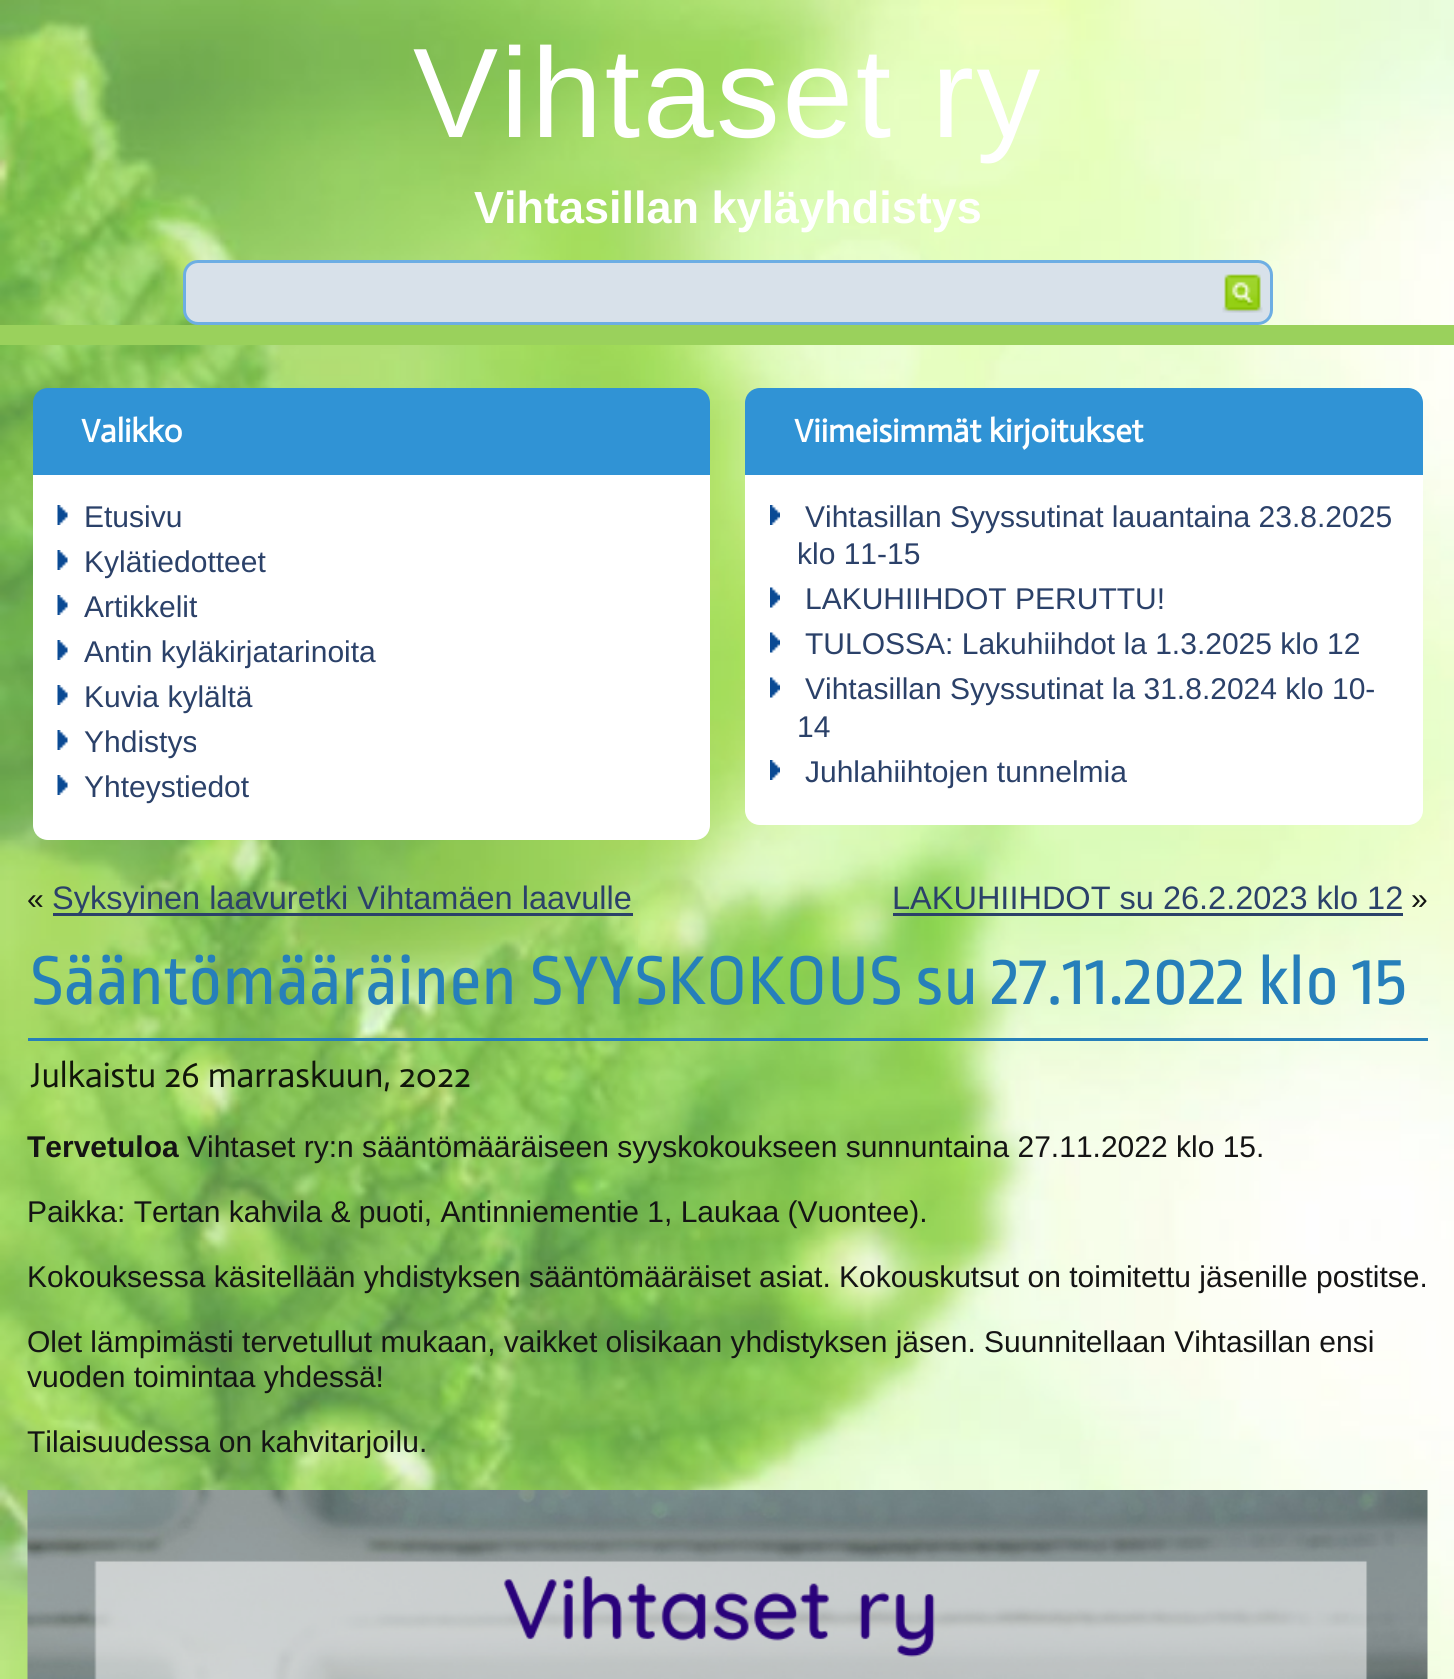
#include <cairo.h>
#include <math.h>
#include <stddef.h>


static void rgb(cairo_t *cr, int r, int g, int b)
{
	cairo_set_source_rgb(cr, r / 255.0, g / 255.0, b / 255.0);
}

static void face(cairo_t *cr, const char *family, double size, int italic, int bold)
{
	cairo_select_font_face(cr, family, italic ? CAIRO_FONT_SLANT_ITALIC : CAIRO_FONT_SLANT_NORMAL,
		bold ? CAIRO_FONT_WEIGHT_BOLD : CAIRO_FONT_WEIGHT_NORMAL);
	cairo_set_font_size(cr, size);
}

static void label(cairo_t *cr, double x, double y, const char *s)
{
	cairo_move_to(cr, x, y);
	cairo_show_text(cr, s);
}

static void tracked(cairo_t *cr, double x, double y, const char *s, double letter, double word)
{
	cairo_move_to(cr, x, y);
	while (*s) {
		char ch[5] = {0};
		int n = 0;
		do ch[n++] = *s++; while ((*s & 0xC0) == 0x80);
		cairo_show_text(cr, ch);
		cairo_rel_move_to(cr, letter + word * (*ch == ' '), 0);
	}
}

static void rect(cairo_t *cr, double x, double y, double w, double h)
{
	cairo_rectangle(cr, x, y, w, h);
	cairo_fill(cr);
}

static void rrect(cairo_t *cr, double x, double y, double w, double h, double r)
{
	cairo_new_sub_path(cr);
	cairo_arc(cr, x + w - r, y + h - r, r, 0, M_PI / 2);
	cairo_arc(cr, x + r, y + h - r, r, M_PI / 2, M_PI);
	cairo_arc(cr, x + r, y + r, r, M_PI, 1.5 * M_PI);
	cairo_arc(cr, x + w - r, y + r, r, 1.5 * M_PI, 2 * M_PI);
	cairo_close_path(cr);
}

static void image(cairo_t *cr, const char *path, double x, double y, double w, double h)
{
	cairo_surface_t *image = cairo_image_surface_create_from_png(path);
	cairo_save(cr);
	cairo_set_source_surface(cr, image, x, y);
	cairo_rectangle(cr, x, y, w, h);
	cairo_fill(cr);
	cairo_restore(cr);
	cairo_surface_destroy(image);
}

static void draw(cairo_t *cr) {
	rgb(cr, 255, 255, 255);
	cairo_paint(cr);
	image(cr, "image0.png", 0, 0, 1454, 1679);
	rgb(cr, 154, 209, 92);
	rect(cr, 0, 325, 1454, 20);
	face(cr, "Liberation Sans", 127.5, 0, 0);
	rgb(cr, 255, 255, 255);
	tracked(cr, 413, 137, "Vihtaset ry", 2.5, 0);
	face(cr, "Liberation Sans", 45, 0, 1);
	label(cr, 474, 223, "Vihtasillan kyläyhdistys");
	rgb(cr, 216, 225, 234);
	rrect(cr, 184.5, 261.5, 1087, 62, 13.5);
	cairo_fill_preserve(cr);
	rgb(cr, 109, 174, 227);
	cairo_set_line_width(cr, 3);
	cairo_stroke(cr);
	image(cr, "image1.png", 1222, 274, 41, 39);
	rgb(cr, 48, 147, 213);
	cairo_new_path(cr);
	cairo_move_to(cr, 48, 388);
	cairo_line_to(cr, 695, 388);
	cairo_curve_to(cr, 703.5, 388, 710, 394.5, 710, 403);
	cairo_line_to(cr, 710, 475);
	cairo_line_to(cr, 33, 475);
	cairo_line_to(cr, 33, 403);
	cairo_curve_to(cr, 33, 394.5, 39.5, 388, 48, 388);
	cairo_close_path(cr);
	cairo_fill(cr);
	face(cr, "Actor", 32.5, 0, 1);
	rgb(cr, 255, 255, 255);
	label(cr, 81, 442, "Valikko");
	cairo_new_path(cr);
	cairo_move_to(cr, 33, 475);
	cairo_line_to(cr, 710, 475);
	cairo_line_to(cr, 710, 825);
	cairo_curve_to(cr, 710, 833.5, 703.5, 840, 695, 840);
	cairo_line_to(cr, 48, 840);
	cairo_curve_to(cr, 39.5, 840, 33, 833.5, 33, 825);
	cairo_close_path(cr);
	cairo_fill(cr);
	image(cr, "image2.png", 57, 505, 11, 20);
	face(cr, "Liberation Sans", 30, 0, 0);
	rgb(cr, 43, 65, 105);
	label(cr, 84, 527, "Etusivu");
	image(cr, "image2.png", 57, 550, 11, 20);
	label(cr, 84, 572, "Kylätiedotteet");
	image(cr, "image2.png", 57, 595, 11, 20);
	label(cr, 84, 617, "Artikkelit");
	image(cr, "image2.png", 57, 640, 11, 20);
	label(cr, 84, 662, "Antin kyläkirjatarinoita");
	image(cr, "image2.png", 57, 685, 11, 20);
	label(cr, 84, 707, "Kuvia kylältä");
	image(cr, "image2.png", 57, 730, 11, 20);
	label(cr, 84, 752, "Yhdistys");
	image(cr, "image3.png", 57, 775, 11, 20);
	label(cr, 84, 797, "Yhteystiedot");
	rgb(cr, 48, 147, 213);
	cairo_new_path(cr);
	cairo_move_to(cr, 760, 388);
	cairo_line_to(cr, 1408, 388);
	cairo_curve_to(cr, 1416.5, 388, 1423, 394.5, 1423, 403);
	cairo_line_to(cr, 1423, 475);
	cairo_line_to(cr, 745, 475);
	cairo_line_to(cr, 745, 403);
	cairo_curve_to(cr, 745, 394.5, 751.5, 388, 760, 388);
	cairo_close_path(cr);
	cairo_fill(cr);
	face(cr, "Actor", 32.5, 0, 1);
	rgb(cr, 255, 255, 255);
	label(cr, 794, 442, "Viimeisimmät kirjoitukset");
	cairo_new_path(cr);
	cairo_move_to(cr, 745, 475);
	cairo_line_to(cr, 1423, 475);
	cairo_line_to(cr, 1423, 810);
	cairo_curve_to(cr, 1423, 818.5, 1416.5, 825, 1408, 825);
	cairo_line_to(cr, 760, 825);
	cairo_curve_to(cr, 751.5, 825, 745, 818.5, 745, 810);
	cairo_close_path(cr);
	cairo_fill(cr);
	image(cr, "image4.png", 770, 505, 10, 20);
	face(cr, "Liberation Sans", 30, 0, 0);
	rgb(cr, 43, 65, 105);
	label(cr, 805, 527, "Vihtasillan Syyssutinat lauantaina 23.8.2025");
	label(cr, 797, 564, "klo 11-15");
	image(cr, "image5.png", 770, 587, 10, 21);
	label(cr, 805, 609, "LAKUHIIHDOT PERUTTU!");
	image(cr, "image6.png", 770, 632, 10, 21);
	label(cr, 805, 654, "TULOSSA: Lakuhiihdot la 1.3.2025 klo 12");
	image(cr, "image6.png", 770, 677, 10, 21);
	label(cr, 805, 699, "Vihtasillan Syyssutinat la 31.8.2024 klo 10-");
	label(cr, 797, 737, "14");
	image(cr, "image4.png", 770, 760, 10, 20);
	label(cr, 805, 782, "Juhlahiihtojen tunnelmia");
	rgb(cr, 20, 20, 20);
	label(cr, 27, 909, "«");
	rgb(cr, 43, 65, 105);
	rect(cr, 53, 913, 580, 3);
	face(cr, "Liberation Sans", 32.5, 0, 0);
	label(cr, 52, 909, "Syksyinen laavuretki Vihtamäen laavulle");
	label(cr, 892, 909, "LAKUHIIHDOT su 26.2.2023 klo 12");
	rect(cr, 893, 913, 510, 3);
	face(cr, "Liberation Sans", 30, 0, 0);
	rgb(cr, 20, 20, 20);
	label(cr, 1411, 909, "»");
	rgb(cr, 38, 127, 186);
	rect(cr, 28, 1038, 1400, 3);
	face(cr, "Ropa Sans", 72.5, 0, 0);
	label(cr, 30, 1004, "Sääntömääräinen SYYSKOKOUS su 27.11.2022 klo 15");
	face(cr, "Actor", 35, 0, 0);
	rgb(cr, 17, 22, 10);
	label(cr, 30, 1087, "Julkaistu 26 marraskuun, 2022");
	face(cr, "Liberation Sans", 30, 0, 1);
	rgb(cr, 20, 20, 20);
	label(cr, 27, 1157, "Tervetuloa");
	face(cr, "Liberation Sans", 30, 0, 0);
	label(cr, 187, 1157, "Vihtaset ry:n sääntömääräiseen syyskokoukseen sunnuntaina 27.11.2022 klo 15.");
	label(cr, 27, 1222, "Paikka: Tertan kahvila & puoti, Antinniementie 1, Laukaa (Vuontee).");
	label(cr, 27, 1287, "Kokouksessa käsitellään yhdistyksen sääntömääräiset asiat. Kokouskutsut on toimitettu jäsenille postitse.");
	label(cr, 27, 1352, "Olet lämpimästi tervetullut mukaan, vaikket olisikaan yhdistyksen jäsen. Suunnitellaan Vihtasillan ensi");
	label(cr, 27, 1387, "vuoden toimintaa yhdessä!");
	label(cr, 27, 1452, "Tilaisuudessa on kahvitarjoilu.");
	image(cr, "image7.png", 27, 1490, 1401, 189);
}

int main(void) {
	cairo_surface_t *surface = cairo_image_surface_create(CAIRO_FORMAT_RGB24, 1454, 1679);
	cairo_t *cr = cairo_create(surface);
	cairo_font_options_t *options = cairo_font_options_create();
	cairo_font_options_set_hint_metrics(options, CAIRO_HINT_METRICS_OFF);
	cairo_font_options_set_hint_style(options, CAIRO_HINT_STYLE_NONE);
	cairo_set_font_options(cr, options);
	cairo_set_miter_limit(cr, 4);
	draw(cr);
	cairo_surface_write_to_png(surface, "render.png");
	cairo_font_options_destroy(options);
	cairo_destroy(cr);
	cairo_surface_destroy(surface);
	return 0;
}
